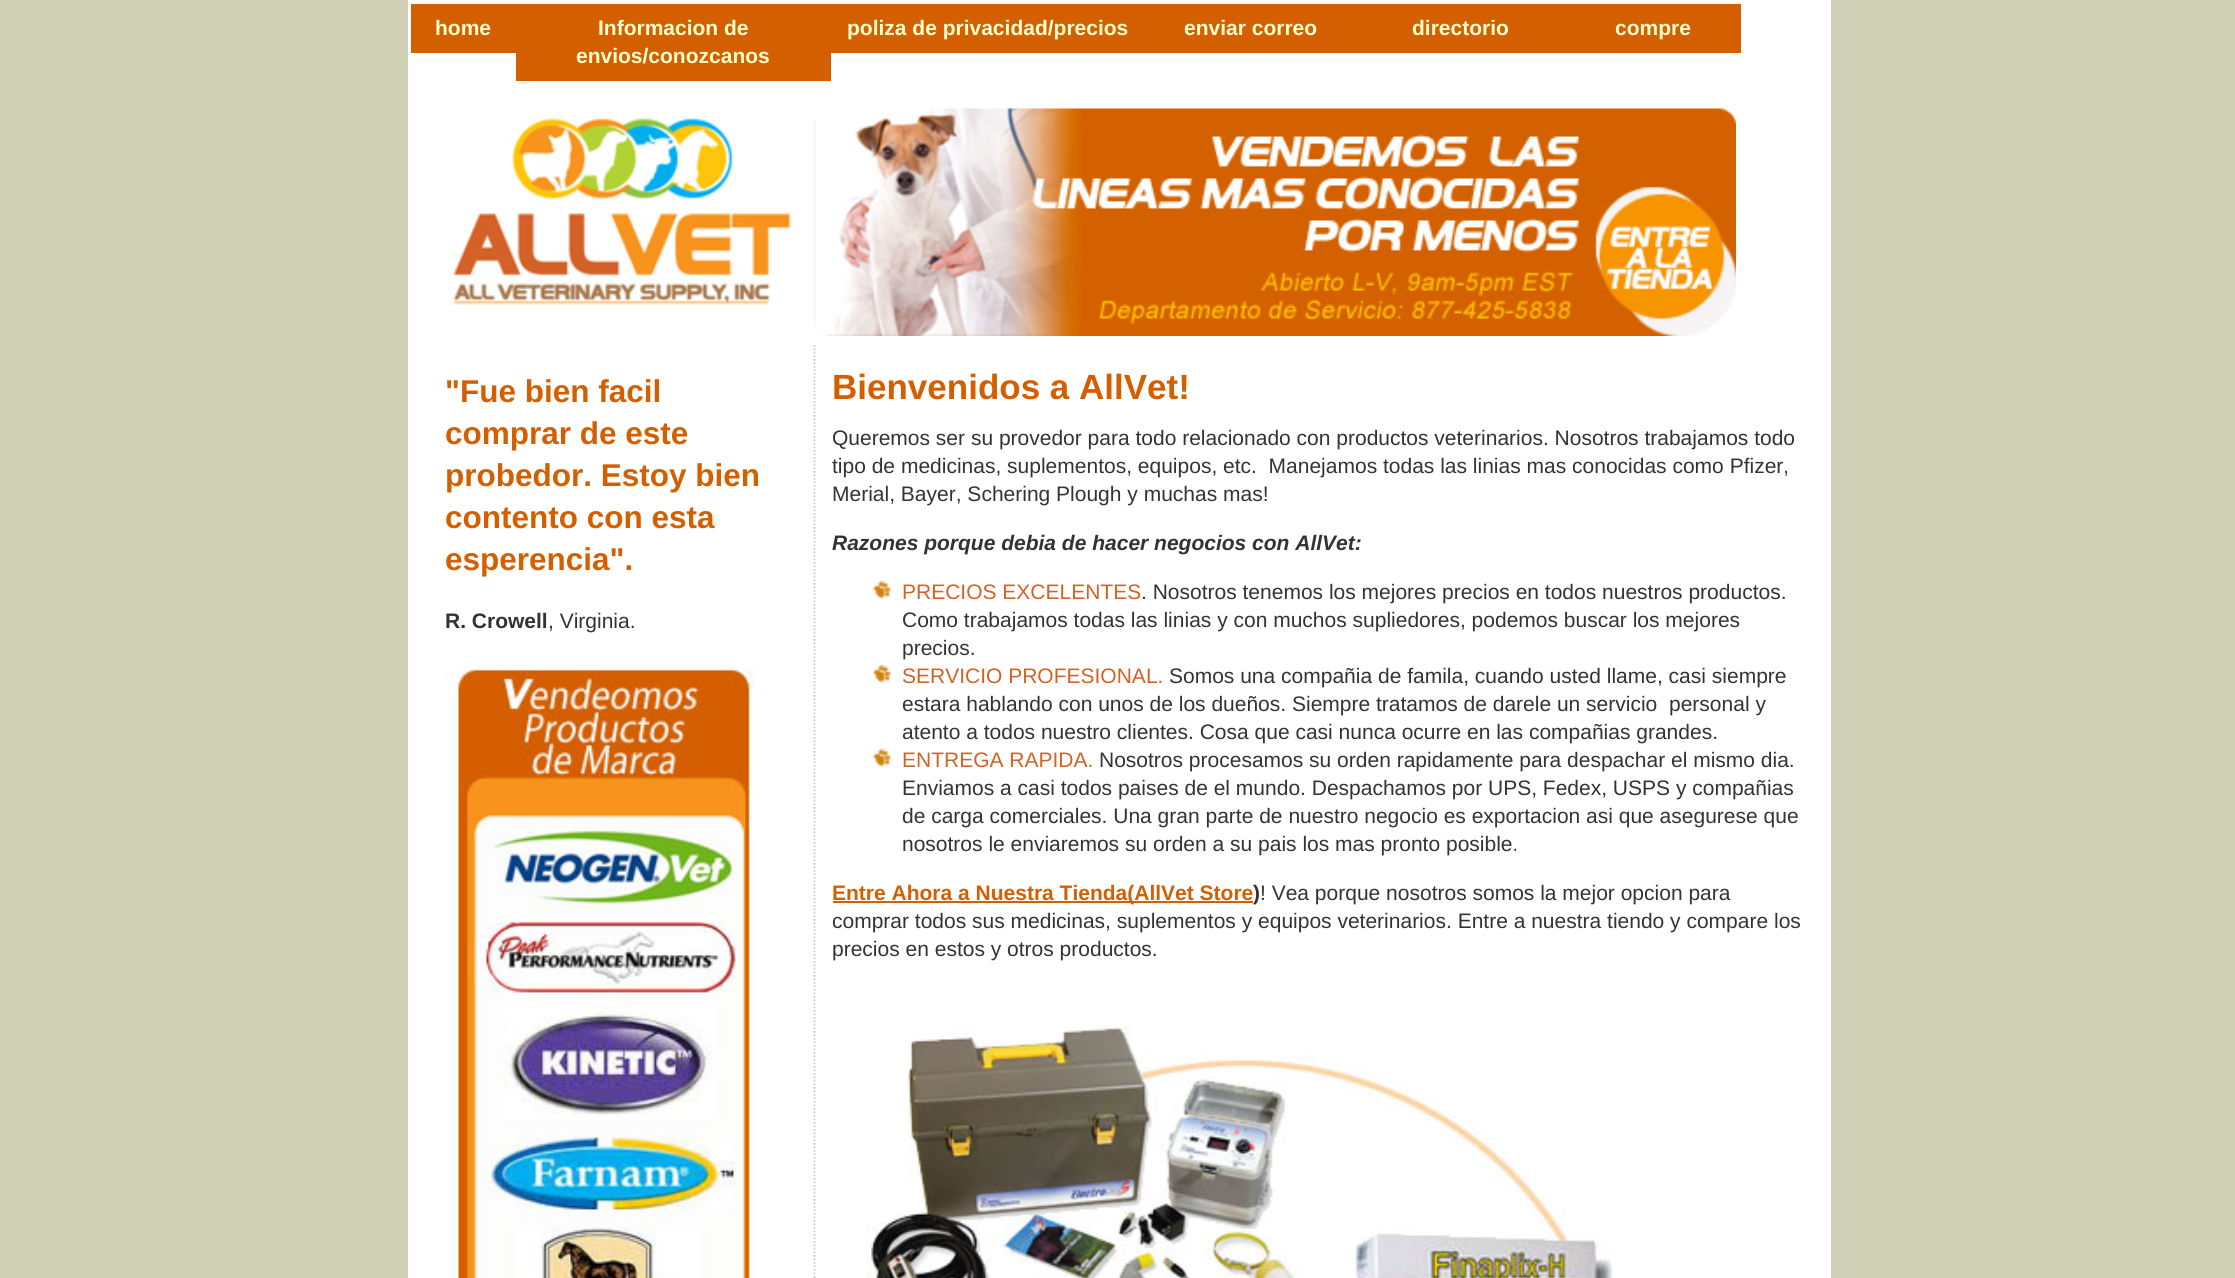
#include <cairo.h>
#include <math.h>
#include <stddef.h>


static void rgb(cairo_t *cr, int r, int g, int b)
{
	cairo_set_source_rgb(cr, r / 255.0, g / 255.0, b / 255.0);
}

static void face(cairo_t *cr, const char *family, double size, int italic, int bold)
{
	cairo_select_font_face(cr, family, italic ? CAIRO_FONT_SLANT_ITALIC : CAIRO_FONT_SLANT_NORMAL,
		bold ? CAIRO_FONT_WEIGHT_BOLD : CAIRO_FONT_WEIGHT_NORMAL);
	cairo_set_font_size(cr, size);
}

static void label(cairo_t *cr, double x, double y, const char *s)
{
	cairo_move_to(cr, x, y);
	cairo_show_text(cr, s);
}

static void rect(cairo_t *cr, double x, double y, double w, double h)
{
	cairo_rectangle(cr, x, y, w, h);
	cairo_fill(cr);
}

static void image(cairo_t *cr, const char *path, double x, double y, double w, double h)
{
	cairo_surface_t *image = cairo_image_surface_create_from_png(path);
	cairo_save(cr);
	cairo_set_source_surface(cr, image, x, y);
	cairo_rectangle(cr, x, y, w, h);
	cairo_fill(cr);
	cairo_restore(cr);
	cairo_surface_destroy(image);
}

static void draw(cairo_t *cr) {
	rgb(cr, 207, 207, 181);
	cairo_paint(cr);
	rgb(cr, 255, 255, 255);
	rect(cr, 408, 0, 1423, 1278);
	rgb(cr, 212, 95, 0);
	rect(cr, 411, 4, 105, 49);
	face(cr, "Liberation Sans", 21, 0, 1);
	rgb(cr, 255, 255, 204);
	label(cr, 435, 35, "home");
	rgb(cr, 212, 95, 0);
	rect(cr, 516, 4, 315, 77);
	rgb(cr, 255, 255, 204);
	label(cr, 598, 35, "Informacion de");
	label(cr, 576, 63, "envios/conozcanos");
	rgb(cr, 212, 95, 0);
	rect(cr, 831, 4, 910, 49);
	rgb(cr, 255, 255, 204);
	label(cr, 847, 35, "poliza de privacidad/precios");
	label(cr, 1184, 35, "enviar correo");
	label(cr, 1412, 35, "directorio");
	label(cr, 1615, 35, "compre");
	image(cr, "image0.png", 452, 118, 340, 187);
	image(cr, "image1.png", 813, 108, 923, 228);
	face(cr, "Liberation Sans", 31.5, 0, 1);
	rgb(cr, 212, 95, 0);
	label(cr, 445, 402, "\"Fue bien facil");
	label(cr, 445, 444, "comprar de este");
	label(cr, 445, 486, "probedor. Estoy bien");
	label(cr, 445, 528, "contento con esta");
	label(cr, 445, 570, "esperencia\".");
	face(cr, "Liberation Sans", 21, 0, 1);
	rgb(cr, 51, 51, 51);
	label(cr, 445, 628, "R. Crowell");
	face(cr, "Liberation Sans", 21, 0, 0);
	label(cr, 548, 628, ", Virginia.");
	image(cr, "image2.png", 446, 669, 309, 609);
	cairo_new_path(cr);
	cairo_move_to(cr, 814.5, 345);
	cairo_line_to(cr, 814.5, 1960);
	rgb(cr, 204, 204, 204);
	cairo_set_line_width(cr, 1.8);
	cairo_set_dash(cr, (double[]){1.75, 1.75}, 2, 0);
	cairo_stroke(cr);
	face(cr, "Liberation Sans", 35, 0, 1);
	rgb(cr, 212, 95, 0);
	label(cr, 832, 399, "Bienvenidos a AllVet!");
	face(cr, "Liberation Sans", 21, 0, 0);
	rgb(cr, 51, 51, 51);
	label(cr, 832, 445, "Queremos ser su provedor para todo relacionado con productos veterinarios. Nosotros trabajamos todo");
	label(cr, 832, 473, "tipo de medicinas, suplementos, equipos, etc.  Manejamos todas las linias mas conocidas como Pfizer,");
	label(cr, 832, 501, "Merial, Bayer, Schering Plough y muchas mas!");
	face(cr, "Liberation Sans", 21, 1, 1);
	label(cr, 832, 550, "Razones porque debia de hacer negocios con AllVet:");
	image(cr, "image3.png", 873, 581, 18, 18);
	face(cr, "Liberation Sans", 21, 0, 0);
	rgb(cr, 212, 98, 38);
	label(cr, 902, 599, "PRECIOS EXCELENTES");
	rgb(cr, 51, 51, 51);
	label(cr, 1141, 599, ". Nosotros tenemos los mejores precios en todos nuestros productos.");
	label(cr, 902, 627, "Como trabajamos todas las linias y con muchos supliedores, podemos buscar los mejores");
	label(cr, 902, 655, "precios.");
	image(cr, "image3.png", 873, 665, 18, 18);
	rgb(cr, 212, 98, 38);
	label(cr, 902, 683, "SERVICIO PROFESIONAL.");
	rgb(cr, 51, 51, 51);
	label(cr, 1169, 683, "Somos una compañia de famila, cuando usted llame, casi siempre");
	label(cr, 902, 711, "estara hablando con unos de los dueños. Siempre tratamos de darele un servicio");
	label(cr, 1669, 711, "personal y");
	label(cr, 902, 739, "atento a todos nuestro clientes. Cosa que casi nunca ocurre en las compañias grandes.");
	image(cr, "image3.png", 873, 749, 18, 18);
	rgb(cr, 212, 98, 38);
	label(cr, 902, 767, "ENTREGA RAPIDA.");
	rgb(cr, 51, 51, 51);
	label(cr, 1099, 767, "Nosotros procesamos su orden rapidamente para despachar el mismo dia.");
	label(cr, 902, 795, "Enviamos a casi todos paises de el mundo. Despachamos por UPS, Fedex, USPS y compañias");
	label(cr, 902, 823, "de carga comerciales. Una gran parte de nuestro negocio es exportacion asi que asegurese que");
	label(cr, 902, 851, "nosotros le enviaremos su orden a su pais los mas pronto posible.");
	rgb(cr, 212, 95, 0);
	rect(cr, 833, 901, 420, 2);
	face(cr, "Liberation Sans", 21, 0, 1);
	label(cr, 832, 900, "Entre Ahora a Nuestra Tienda(AllVet Store");
	rgb(cr, 51, 51, 51);
	label(cr, 1253, 900, ")");
	face(cr, "Liberation Sans", 21, 0, 0);
	label(cr, 1260, 900, "! Vea porque nosotros somos la mejor opcion para");
	label(cr, 832, 928, "comprar todos sus medicinas, suplementos y equipos veterinarios. Entre a nuestra tiendo y compare los");
	label(cr, 832, 956, "precios en estos y otros productos.");
	image(cr, "image4.png", 866, 1026, 747, 252);
}

int main(void) {
	cairo_surface_t *surface = cairo_image_surface_create(CAIRO_FORMAT_RGB24, 2235, 1278);
	cairo_t *cr = cairo_create(surface);
	cairo_font_options_t *options = cairo_font_options_create();
	cairo_font_options_set_hint_metrics(options, CAIRO_HINT_METRICS_OFF);
	cairo_font_options_set_hint_style(options, CAIRO_HINT_STYLE_NONE);
	cairo_set_font_options(cr, options);
	cairo_set_miter_limit(cr, 4);
	draw(cr);
	cairo_surface_write_to_png(surface, "render.png");
	cairo_font_options_destroy(options);
	cairo_destroy(cr);
	cairo_surface_destroy(surface);
	return 0;
}
